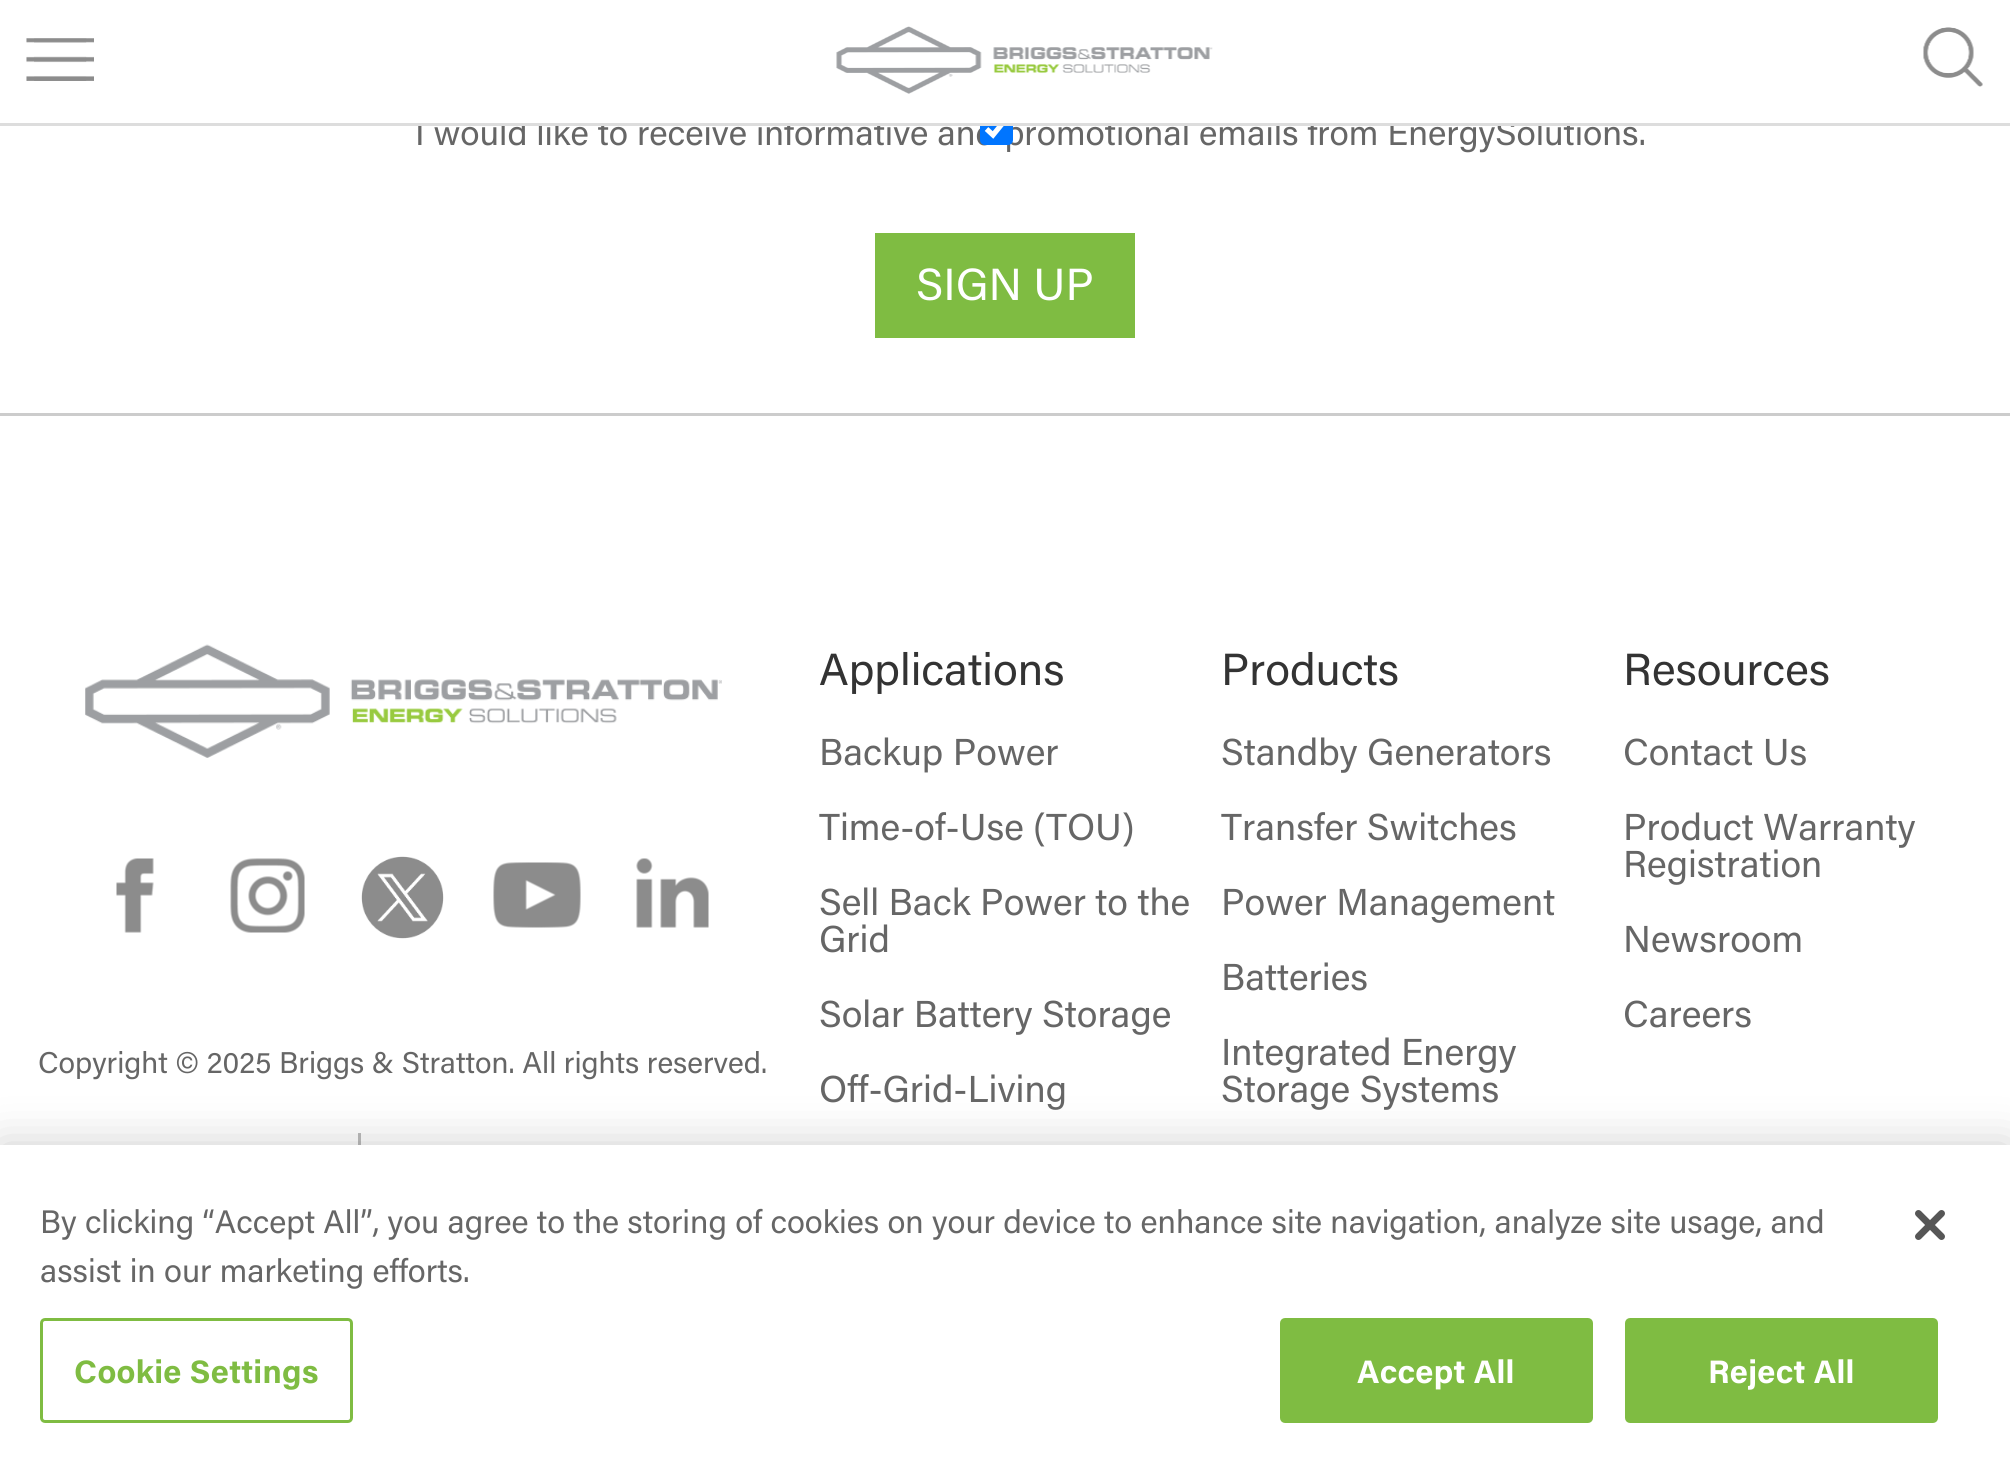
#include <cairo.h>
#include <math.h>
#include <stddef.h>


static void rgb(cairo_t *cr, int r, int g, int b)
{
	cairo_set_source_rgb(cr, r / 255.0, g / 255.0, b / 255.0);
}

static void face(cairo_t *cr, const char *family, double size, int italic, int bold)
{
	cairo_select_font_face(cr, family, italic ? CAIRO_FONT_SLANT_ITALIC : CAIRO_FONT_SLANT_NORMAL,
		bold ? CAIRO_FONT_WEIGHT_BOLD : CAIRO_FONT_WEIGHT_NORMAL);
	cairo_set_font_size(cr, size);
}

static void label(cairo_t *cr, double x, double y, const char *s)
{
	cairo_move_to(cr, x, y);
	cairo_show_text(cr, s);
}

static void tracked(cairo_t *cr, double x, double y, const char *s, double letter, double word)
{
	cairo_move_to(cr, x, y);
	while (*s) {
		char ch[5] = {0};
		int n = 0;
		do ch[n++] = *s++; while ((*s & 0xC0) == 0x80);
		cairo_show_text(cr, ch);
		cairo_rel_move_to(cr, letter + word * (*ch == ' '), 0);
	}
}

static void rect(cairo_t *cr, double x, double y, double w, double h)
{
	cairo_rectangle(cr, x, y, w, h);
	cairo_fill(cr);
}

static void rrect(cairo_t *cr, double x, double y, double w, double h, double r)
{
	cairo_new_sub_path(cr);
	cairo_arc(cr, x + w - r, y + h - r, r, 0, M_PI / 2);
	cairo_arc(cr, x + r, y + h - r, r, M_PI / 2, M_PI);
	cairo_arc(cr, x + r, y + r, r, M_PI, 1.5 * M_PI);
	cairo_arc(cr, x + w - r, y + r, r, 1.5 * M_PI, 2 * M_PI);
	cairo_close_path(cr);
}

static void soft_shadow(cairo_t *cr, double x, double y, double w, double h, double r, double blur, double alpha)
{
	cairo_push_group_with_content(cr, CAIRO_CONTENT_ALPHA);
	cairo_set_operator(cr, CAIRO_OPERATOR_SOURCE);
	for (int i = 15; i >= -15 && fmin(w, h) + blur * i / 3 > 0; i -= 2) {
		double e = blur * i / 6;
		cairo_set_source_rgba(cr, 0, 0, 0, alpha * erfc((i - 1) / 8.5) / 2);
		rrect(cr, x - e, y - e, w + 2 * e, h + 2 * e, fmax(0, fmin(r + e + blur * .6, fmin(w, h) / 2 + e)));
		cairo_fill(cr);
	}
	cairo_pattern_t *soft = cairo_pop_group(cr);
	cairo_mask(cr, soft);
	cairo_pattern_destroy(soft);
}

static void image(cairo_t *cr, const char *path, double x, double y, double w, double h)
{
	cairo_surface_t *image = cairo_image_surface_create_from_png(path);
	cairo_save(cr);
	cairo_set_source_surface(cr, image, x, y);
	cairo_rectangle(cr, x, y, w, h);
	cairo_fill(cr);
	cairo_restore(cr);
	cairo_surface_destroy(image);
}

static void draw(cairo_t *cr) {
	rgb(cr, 255, 255, 255);
	cairo_paint(cr);
	face(cr, "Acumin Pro", 35, 0, 0);
	rgb(cr, 102, 102, 102);
	label(cr, 415, 145, "I would like to receive informative and promotional emails from EnergySolutions.");
	rgb(cr, 0, 117, 255);
	rrect(cr, 980, 113, 33, 32, 5);
	cairo_fill(cr);
	cairo_new_path(cr);
	cairo_move_to(cr, 986.5, 129);
	cairo_line_to(cr, 993, 135);
	cairo_line_to(cr, 1006, 119);
	rgb(cr, 255, 255, 255);
	cairo_set_line_width(cr, 5.2);
	cairo_stroke(cr);
	rect(cr, 417, 113, 1164, 10);
	rgb(cr, 221, 221, 221);
	rect(cr, 0, 123, 2010, 3);
	image(cr, "image0.png", 26, 38, 68, 43);
	image(cr, "image1.png", 836, 26, 377, 68);
	image(cr, "image2.png", 1923, 27, 60, 60);
	rgb(cr, 204, 204, 204);
	rect(cr, 0, 413, 2010, 3);
	rgb(cr, 127, 188, 66);
	rect(cr, 875, 233, 260, 105);
	face(cr, "Acumin Pro", 45, 0, 0);
	rgb(cr, 255, 255, 255);
	label(cr, 916, 300, "SIGN UP");
	image(cr, "image3.png", 85, 644, 637, 114);
	image(cr, "image4.png", 116, 858, 38, 75);
	image(cr, "image5.png", 230, 858, 75, 75);
	image(cr, "image6.png", 361, 856, 83, 83);
	image(cr, "image7.png", 493, 862, 88, 66);
	image(cr, "image8.png", 636, 858, 73, 70);
	face(cr, "Acumin Pro", 30, 0, 0);
	rgb(cr, 102, 102, 102);
	label(cr, 38, 1073, "Copyright © 2025 Briggs & Stratton. All rights reserved.");
	rgb(cr, 188, 188, 188);
	rect(cr, 358, 1133, 3, 12);
	face(cr, "Acumin Pro", 45, 0, 0);
	rgb(cr, 51, 51, 51);
	label(cr, 819, 685, "Applications");
	face(cr, "Acumin Pro", 37.5, 0, 0);
	rgb(cr, 102, 102, 102);
	label(cr, 819, 765, "Backup Power");
	label(cr, 819, 840, "Time-of-Use (TOU)");
	label(cr, 819, 915, "Sell Back Power to the");
	label(cr, 819, 952, "Grid");
	label(cr, 819, 1027, "Solar Battery Storage");
	label(cr, 819, 1102, "Off-Grid-Living");
	face(cr, "Acumin Pro", 45, 0, 0);
	rgb(cr, 51, 51, 51);
	label(cr, 1221, 685, "Products");
	face(cr, "Acumin Pro", 37.5, 0, 0);
	rgb(cr, 102, 102, 102);
	label(cr, 1221, 765, "Standby Generators");
	label(cr, 1221, 840, "Transfer Switches");
	label(cr, 1221, 915, "Power Management");
	label(cr, 1221, 990, "Batteries");
	label(cr, 1221, 1065, "Integrated Energy");
	label(cr, 1221, 1102, "Storage Systems");
	face(cr, "Acumin Pro", 45, 0, 0);
	rgb(cr, 51, 51, 51);
	label(cr, 1623, 685, "Resources");
	face(cr, "Acumin Pro", 37.5, 0, 0);
	rgb(cr, 102, 102, 102);
	label(cr, 1623, 765, "Contact Us");
	label(cr, 1623, 840, "Product Warranty");
	label(cr, 1623, 877, "Registration");
	label(cr, 1623, 952, "Newsroom");
	label(cr, 1623, 1027, "Careers");
	rgb(cr, 0, 0, 0);
	soft_shadow(cr, 0, 1145, 2010, 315, 0, 22.5, 0.2);
	rgb(cr, 255, 255, 255);
	rect(cr, 0, 1145, 2010, 314);
	face(cr, "Acumin Pro", 32.52, 0, 0);
	rgb(cr, 102, 102, 102);
	label(cr, 40, 1233, "By clicking “Accept All”, you agree to the storing of cookies on your device to enhance site navigation, analyze site usage, and");
	label(cr, 40, 1282, "assist in our marketing efforts.");
	rrect(cr, 41.5, 1319.5, 310, 102, 3.5);
	rgb(cr, 127, 188, 66);
	cairo_set_line_width(cr, 3);
	cairo_stroke(cr);
	face(cr, "Acumin Pro", 32.52, 0, 1);
	tracked(cr, 74, 1383, "Cookie Settings", 0.3, 0);
	rrect(cr, 1281.5, 1319.5, 310, 102, 3.5);
	cairo_fill_preserve(cr);
	cairo_stroke(cr);
	rgb(cr, 255, 255, 255);
	tracked(cr, 1357, 1383, "Accept All", 0.3, 0);
	rgb(cr, 127, 188, 66);
	rrect(cr, 1626.5, 1319.5, 310, 102, 3.5);
	cairo_fill_preserve(cr);
	cairo_stroke(cr);
	rgb(cr, 255, 255, 255);
	tracked(cr, 1708, 1383, "Reject All", 0.3, 0);
	image(cr, "image9.png", 1915, 1210, 30, 30);
}

int main(void) {
	cairo_surface_t *surface = cairo_image_surface_create(CAIRO_FORMAT_RGB24, 2010, 1459);
	cairo_t *cr = cairo_create(surface);
	cairo_font_options_t *options = cairo_font_options_create();
	cairo_font_options_set_hint_metrics(options, CAIRO_HINT_METRICS_OFF);
	cairo_font_options_set_hint_style(options, CAIRO_HINT_STYLE_NONE);
	cairo_set_font_options(cr, options);
	cairo_set_miter_limit(cr, 4);
	draw(cr);
	cairo_surface_write_to_png(surface, "render.png");
	cairo_font_options_destroy(options);
	cairo_destroy(cr);
	cairo_surface_destroy(surface);
	return 0;
}
